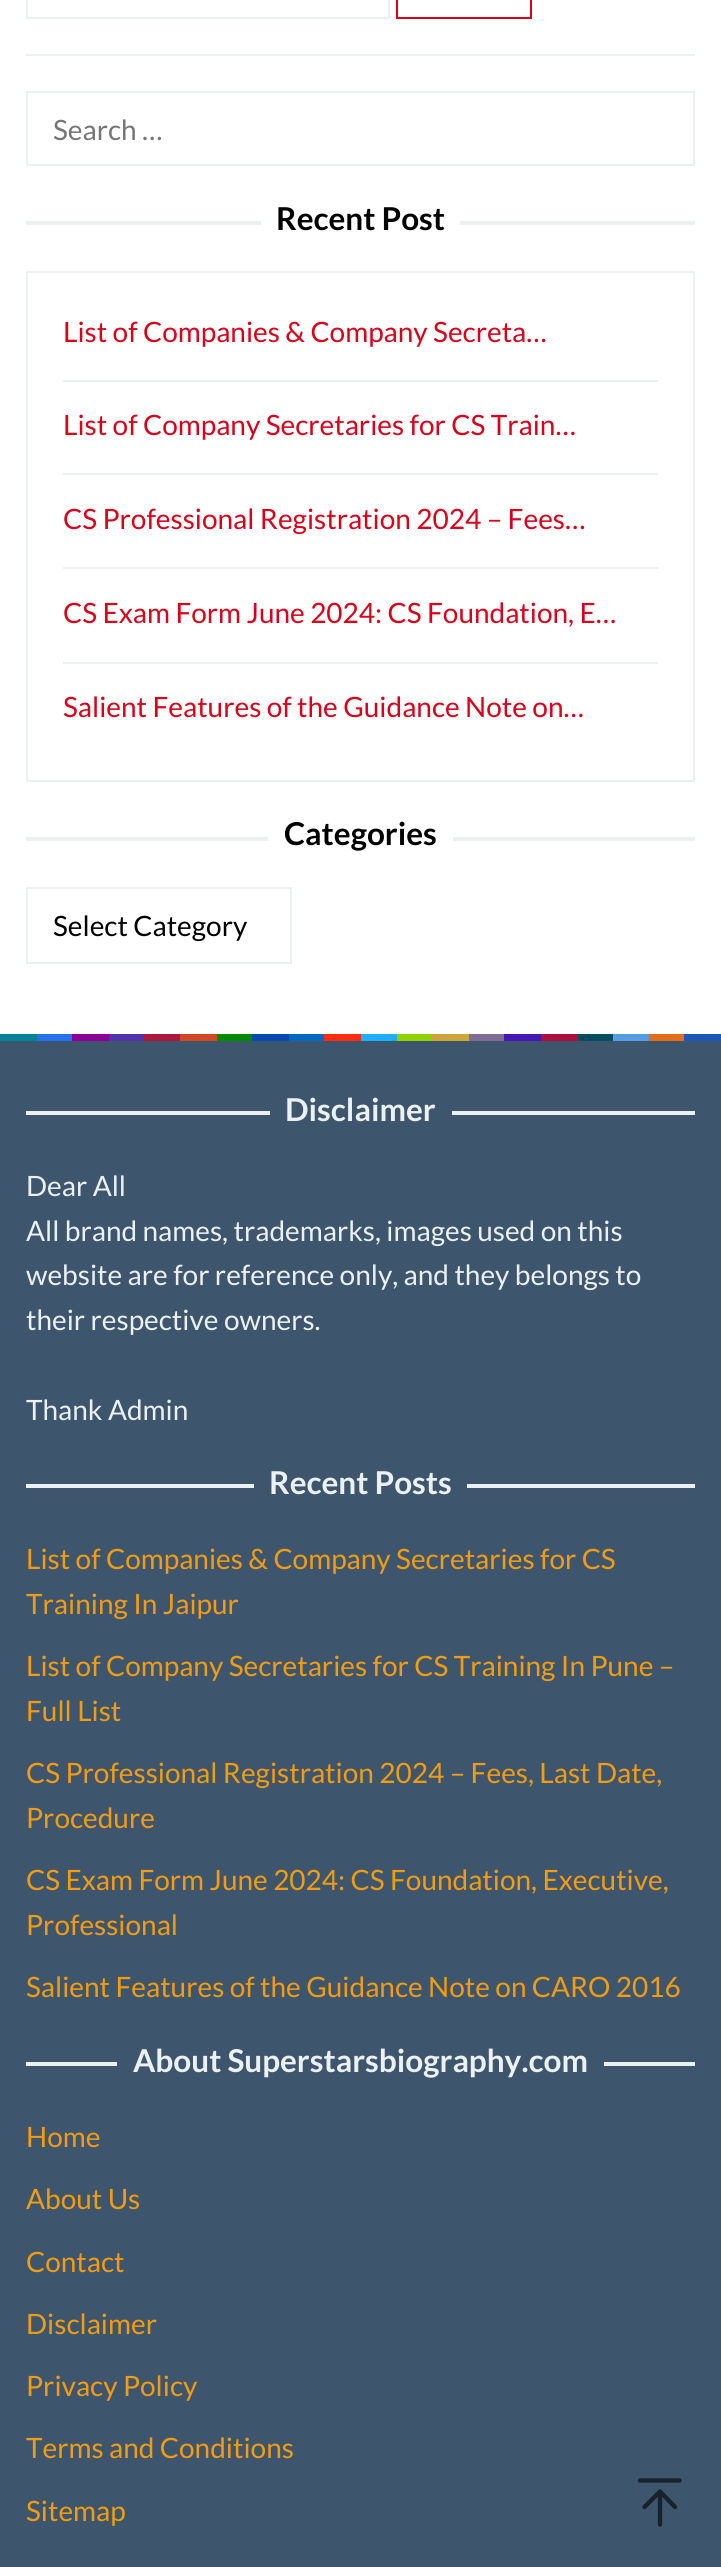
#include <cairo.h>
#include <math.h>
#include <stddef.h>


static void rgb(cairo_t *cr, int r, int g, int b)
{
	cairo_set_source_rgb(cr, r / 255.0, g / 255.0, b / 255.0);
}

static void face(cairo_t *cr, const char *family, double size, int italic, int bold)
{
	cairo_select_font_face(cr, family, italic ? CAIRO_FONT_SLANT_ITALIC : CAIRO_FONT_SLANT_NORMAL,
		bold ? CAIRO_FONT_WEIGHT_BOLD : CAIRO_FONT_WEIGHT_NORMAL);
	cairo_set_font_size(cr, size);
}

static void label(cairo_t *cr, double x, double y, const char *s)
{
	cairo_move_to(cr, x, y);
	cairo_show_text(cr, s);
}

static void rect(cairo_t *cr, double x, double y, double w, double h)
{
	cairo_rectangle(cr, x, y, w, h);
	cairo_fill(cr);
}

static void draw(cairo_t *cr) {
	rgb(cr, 255, 255, 255);
	cairo_paint(cr);
	rgb(cr, 236, 240, 241);
	rect(cr, 26, 54, 669, 2);
	cairo_rectangle(cr, 27, -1, 362, 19);
	cairo_stroke(cr);
	cairo_rectangle(cr, 397, -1, 134, 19);
	rgb(cr, 219, 0, 25);
	cairo_stroke(cr);
	cairo_rectangle(cr, 27, 92, 667, 73);
	rgb(cr, 236, 240, 241);
	cairo_stroke(cr);
	face(cr, "Lato", 28, 0, 0);
	rgb(cr, 117, 117, 117);
	label(cr, 53, 140, "Search …");
	rgb(cr, 236, 240, 241);
	rect(cr, 26, 221, 235, 4);
	face(cr, "Lato", 31.5, 0, 1);
	rgb(cr, 0, 0, 0);
	label(cr, 276, 230, "Recent Post");
	rgb(cr, 236, 240, 241);
	rect(cr, 460, 221, 235, 4);
	cairo_rectangle(cr, 27, 272, 667, 509);
	cairo_stroke(cr);
	rect(cr, 63, 380, 595, 2);
	face(cr, "Lato", 28, 0, 0);
	rgb(cr, 219, 0, 25);
	label(cr, 63, 342, "List of Companies & Company Secreta…");
	rgb(cr, 236, 240, 241);
	rect(cr, 63, 473, 595, 2);
	rgb(cr, 219, 0, 25);
	label(cr, 63, 435, "List of Company Secretaries for CS Train…");
	rgb(cr, 236, 240, 241);
	rect(cr, 63, 567, 595, 2);
	rgb(cr, 219, 0, 25);
	label(cr, 63, 529, "CS Professional Registration 2024 – Fees…");
	rgb(cr, 236, 240, 241);
	rect(cr, 63, 662, 595, 2);
	rgb(cr, 219, 0, 25);
	label(cr, 63, 623, "CS Exam Form June 2024: CS Foundation, E…");
	label(cr, 63, 717, "Salient Features of the Guidance Note on…");
	rgb(cr, 236, 240, 241);
	rect(cr, 26, 837, 242, 4);
	face(cr, "Lato", 31.5, 0, 1);
	rgb(cr, 0, 0, 0);
	label(cr, 284, 845, "Categories");
	rgb(cr, 236, 240, 241);
	rect(cr, 453, 837, 242, 4);
	cairo_rectangle(cr, 27, 888, 264, 75);
	cairo_stroke(cr);
	face(cr, "Lato", 28, 0, 0);
	rgb(cr, 0, 0, 0);
	label(cr, 53, 936, "Select Category");
	rgb(cr, 0, 130, 153);
	rect(cr, 0, 1034, 37, 7);
	rgb(cr, 38, 114, 236);
	rect(cr, 37, 1034, 35, 7);
	rgb(cr, 140, 0, 149);
	rect(cr, 72, 1034, 37, 7);
	rgb(cr, 81, 51, 171);
	rect(cr, 109, 1034, 35, 7);
	rgb(cr, 172, 25, 61);
	rect(cr, 144, 1034, 36, 7);
	rgb(cr, 210, 71, 38);
	rect(cr, 180, 1034, 37, 7);
	rgb(cr, 0, 138, 0);
	rect(cr, 217, 1034, 35, 7);
	rgb(cr, 9, 74, 178);
	rect(cr, 252, 1034, 37, 7);
	rgb(cr, 0, 106, 193);
	rect(cr, 289, 1034, 35, 7);
	rgb(cr, 255, 46, 18);
	rect(cr, 324, 1034, 37, 7);
	rgb(cr, 31, 174, 255);
	rect(cr, 361, 1034, 36, 7);
	rgb(cr, 145, 209, 0);
	rect(cr, 397, 1034, 35, 7);
	rgb(cr, 206, 165, 57);
	rect(cr, 432, 1034, 37, 7);
	rgb(cr, 127, 110, 148);
	rect(cr, 469, 1034, 35, 7);
	rgb(cr, 70, 23, 180);
	rect(cr, 504, 1034, 37, 7);
	rgb(cr, 173, 16, 60);
	rect(cr, 541, 1034, 37, 7);
	rgb(cr, 0, 77, 96);
	rect(cr, 578, 1034, 35, 7);
	rgb(cr, 86, 156, 227);
	rect(cr, 613, 1034, 36, 7);
	rgb(cr, 229, 108, 25);
	rect(cr, 649, 1034, 35, 7);
	rgb(cr, 27, 88, 184);
	rect(cr, 684, 1034, 37, 7);
	rgb(cr, 61, 86, 110);
	rect(cr, 0, 1041, 721, 1526);
	rgb(cr, 236, 240, 241);
	rect(cr, 26, 1111, 244, 4);
	face(cr, "Lato", 31.5, 0, 1);
	label(cr, 285, 1121, "Disclaimer");
	rect(cr, 452, 1111, 243, 4);
	face(cr, "Lato", 28, 0, 0);
	label(cr, 26, 1196, "Dear All");
	label(cr, 26, 1241, "All brand names, trademarks, images used on this");
	label(cr, 26, 1285, "website are for reference only, and they belongs to");
	label(cr, 26, 1330, "their respective owners.");
	label(cr, 26, 1420, "Thank Admin");
	rect(cr, 26, 1484, 228, 4);
	face(cr, "Lato", 31.5, 0, 1);
	label(cr, 269, 1494, "Recent Posts");
	rect(cr, 467, 1484, 228, 4);
	face(cr, "Lato", 28, 0, 0);
	rgb(cr, 243, 156, 18);
	label(cr, 26, 1569, "List of Companies & Company Secretaries for CS");
	label(cr, 26, 1614, "Training In Jaipur");
	label(cr, 26, 1676, "List of Company Secretaries for CS Training In Pune –");
	label(cr, 26, 1721, "Full List");
	label(cr, 26, 1783, "CS Professional Registration 2024 – Fees, Last Date,");
	label(cr, 26, 1828, "Procedure");
	label(cr, 26, 1890, "CS Exam Form June 2024: CS Foundation, Executive,");
	label(cr, 26, 1935, "Professional");
	label(cr, 26, 1997, "Salient Features of the Guidance Note on CARO 2016");
	rgb(cr, 236, 240, 241);
	rect(cr, 26, 2062, 91, 4);
	face(cr, "Lato", 31.5, 0, 1);
	label(cr, 133, 2072, "About Superstarsbiography.com");
	rect(cr, 604, 2062, 91, 4);
	face(cr, "Lato", 28, 0, 0);
	rgb(cr, 243, 156, 18);
	label(cr, 26, 2147, "Home");
	label(cr, 26, 2209, "About Us");
	label(cr, 26, 2272, "Contact");
	label(cr, 26, 2334, "Disclaimer");
	label(cr, 26, 2396, "Privacy Policy");
	label(cr, 26, 2458, "Terms and Conditions");
	label(cr, 26, 2521, "Sitemap");
	cairo_new_path(cr);
	cairo_move_to(cr, 660, 2524.5);
	cairo_line_to(cr, 660, 2491.5);
	cairo_move_to(cr, 644.5, 2507);
	cairo_line_to(cr, 660, 2491.5);
	cairo_line_to(cr, 675, 2507);
	cairo_move_to(cr, 640, 2480.5);
	cairo_line_to(cr, 679.5, 2480.5);
	rgb(cr, 24, 34, 44);
	cairo_set_line_width(cr, 4.4);
	cairo_set_line_cap(cr, CAIRO_LINE_CAP_ROUND);
	cairo_set_line_join(cr, CAIRO_LINE_JOIN_ROUND);
	cairo_stroke(cr);
}

int main(void) {
	cairo_surface_t *surface = cairo_image_surface_create(CAIRO_FORMAT_RGB24, 721, 2567);
	cairo_t *cr = cairo_create(surface);
	cairo_font_options_t *options = cairo_font_options_create();
	cairo_font_options_set_hint_metrics(options, CAIRO_HINT_METRICS_OFF);
	cairo_font_options_set_hint_style(options, CAIRO_HINT_STYLE_NONE);
	cairo_set_font_options(cr, options);
	cairo_set_miter_limit(cr, 4);
	draw(cr);
	cairo_surface_write_to_png(surface, "render.png");
	cairo_font_options_destroy(options);
	cairo_destroy(cr);
	cairo_surface_destroy(surface);
	return 0;
}
